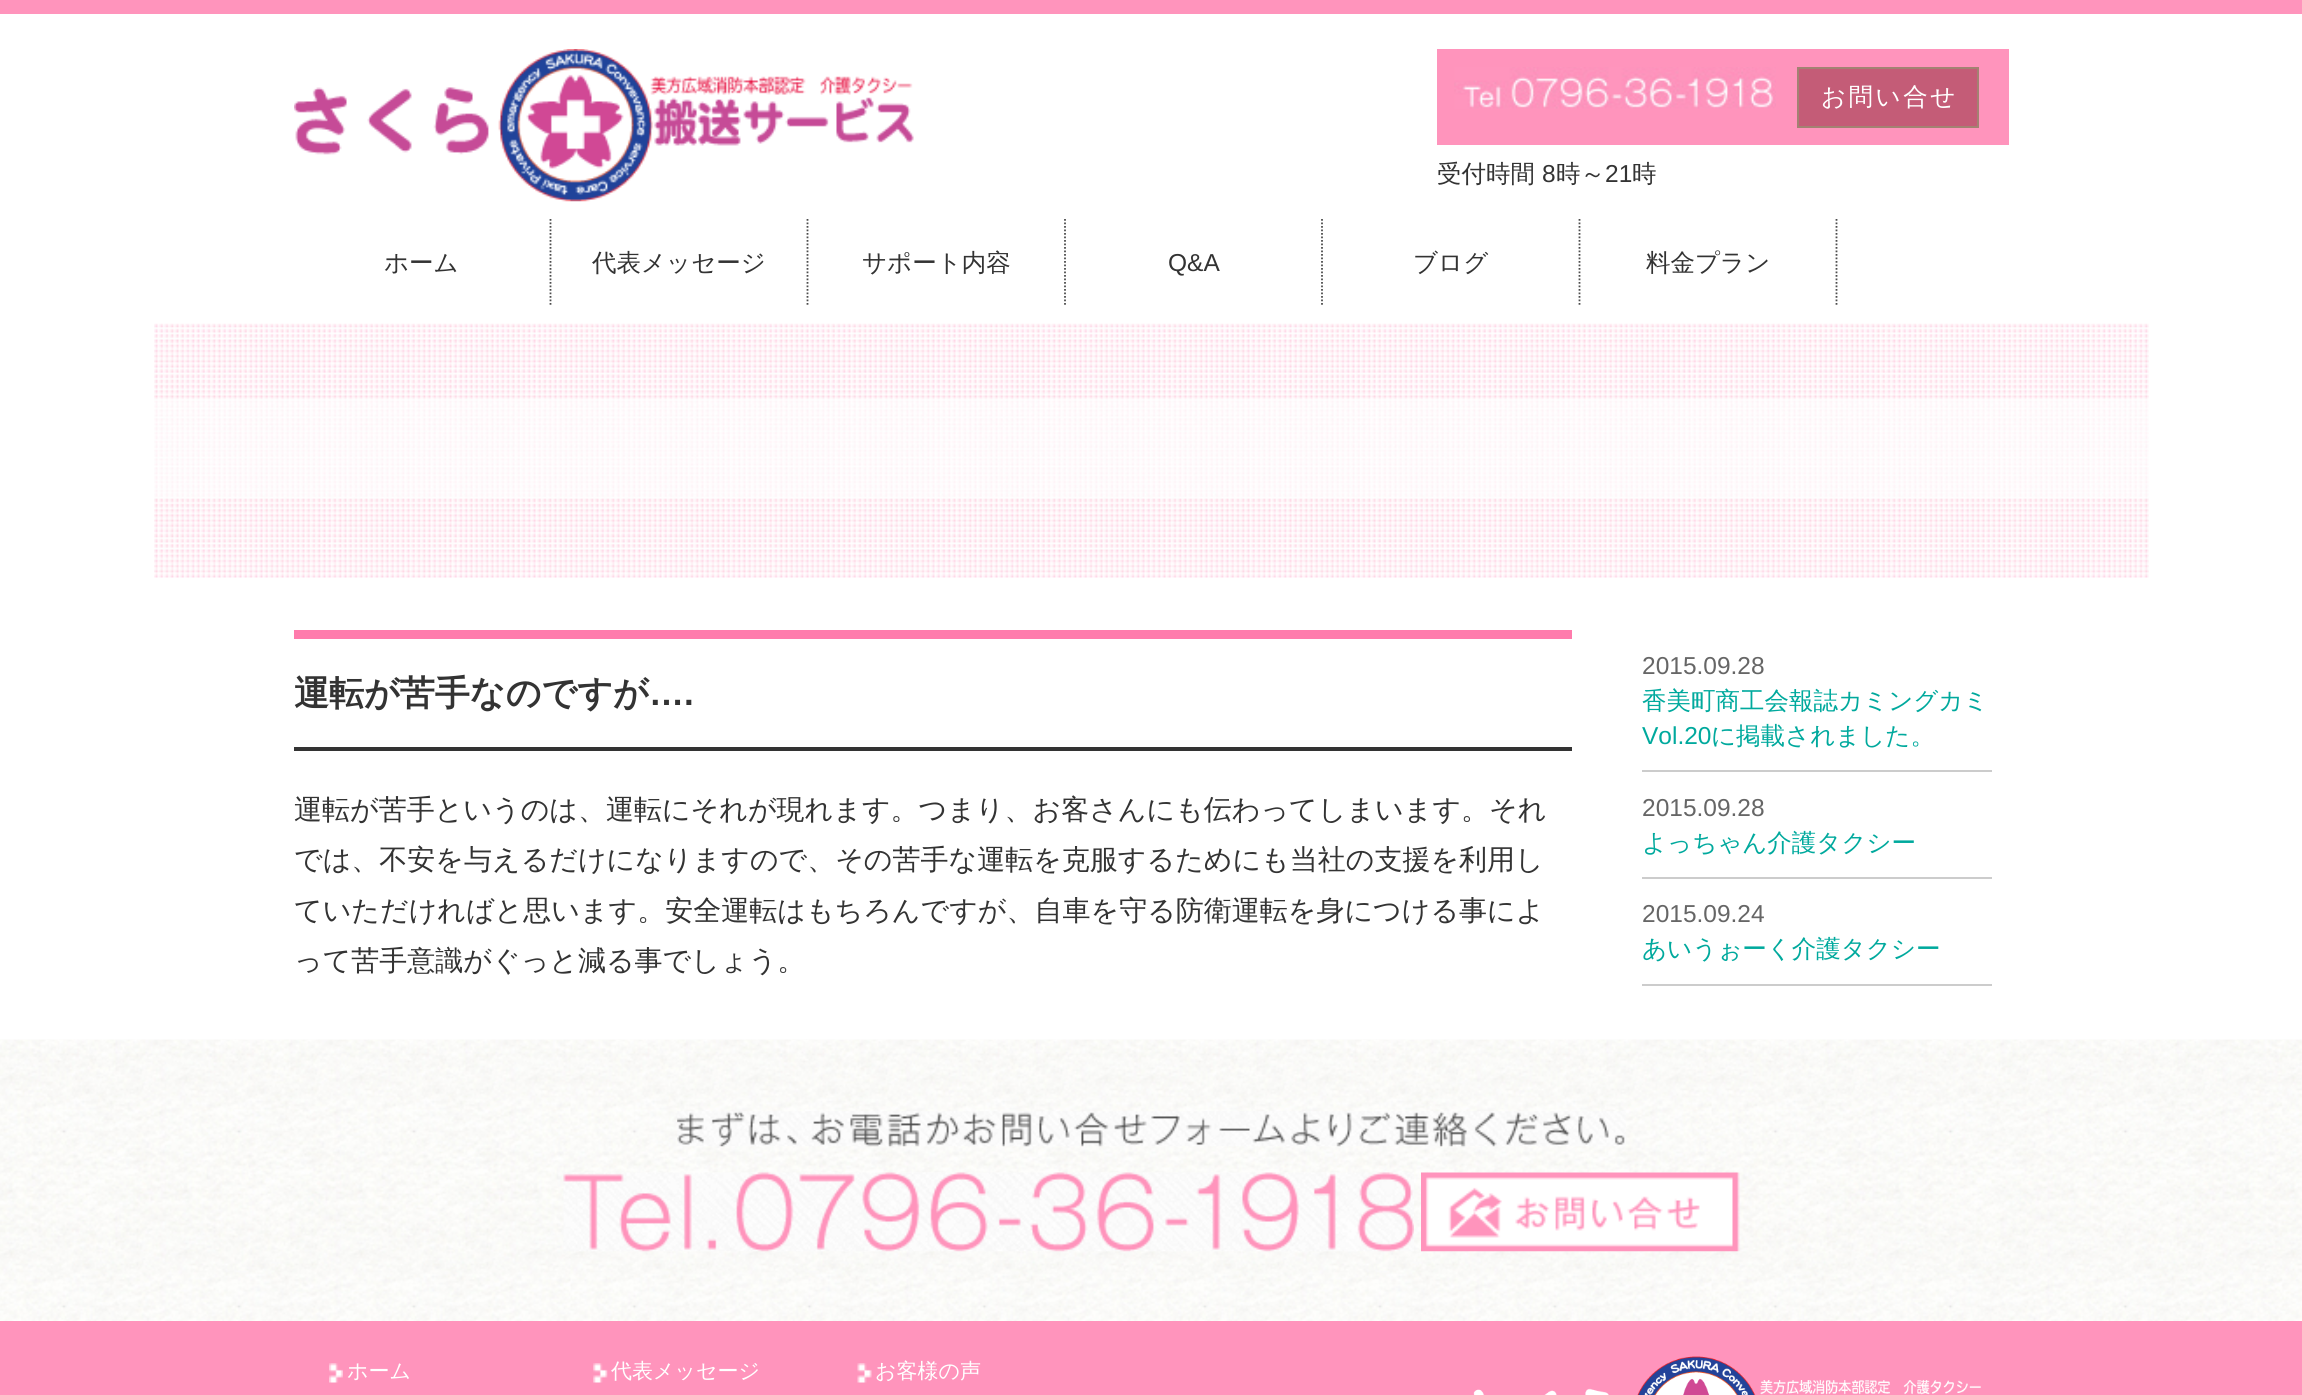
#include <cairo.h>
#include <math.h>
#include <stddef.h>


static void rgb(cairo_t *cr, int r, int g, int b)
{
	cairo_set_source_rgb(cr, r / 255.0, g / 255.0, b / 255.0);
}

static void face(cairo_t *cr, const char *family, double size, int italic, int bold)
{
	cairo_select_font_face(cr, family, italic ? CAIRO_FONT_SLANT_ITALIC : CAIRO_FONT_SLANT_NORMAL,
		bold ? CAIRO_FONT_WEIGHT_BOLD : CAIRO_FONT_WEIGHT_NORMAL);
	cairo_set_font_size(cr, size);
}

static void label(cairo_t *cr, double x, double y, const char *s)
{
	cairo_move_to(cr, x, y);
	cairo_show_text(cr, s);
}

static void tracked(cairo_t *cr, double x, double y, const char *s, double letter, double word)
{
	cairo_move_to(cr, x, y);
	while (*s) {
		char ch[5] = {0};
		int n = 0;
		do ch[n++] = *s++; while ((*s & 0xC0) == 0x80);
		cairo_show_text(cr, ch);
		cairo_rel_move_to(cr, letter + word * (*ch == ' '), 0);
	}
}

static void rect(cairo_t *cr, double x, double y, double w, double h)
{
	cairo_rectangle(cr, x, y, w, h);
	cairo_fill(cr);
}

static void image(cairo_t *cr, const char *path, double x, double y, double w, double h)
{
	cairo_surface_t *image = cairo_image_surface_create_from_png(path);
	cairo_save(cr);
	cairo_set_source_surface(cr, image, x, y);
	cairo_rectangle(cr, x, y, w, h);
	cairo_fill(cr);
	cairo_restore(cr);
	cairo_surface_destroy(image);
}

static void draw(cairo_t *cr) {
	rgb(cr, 255, 255, 255);
	cairo_paint(cr);
	rgb(cr, 255, 148, 188);
	rect(cr, 0, 0, 2302, 14);
	image(cr, "image0.png", 294, 49, 620, 153);
	rect(cr, 1437, 49, 572, 96);
	image(cr, "image1.png", 1454, 67, 322, 42);
	rgb(cr, 196, 92, 119);
	cairo_rectangle(cr, 1798, 68, 180, 59);
	cairo_fill_preserve(cr);
	rgb(cr, 163, 130, 114);
	cairo_stroke(cr);
	face(cr, "WenQuanYi Zen Hei Medium", 24.5, 0, 0);
	rgb(cr, 255, 255, 255);
	tracked(cr, 1821, 105, "お問い合せ", 2.5, 0);
	rgb(cr, 51, 51, 51);
	label(cr, 1437, 182, "受付時間");
	face(cr, "Liberation Sans", 24.5, 0, 0);
	label(cr, 1542, 182, "8");
	face(cr, "WenQuanYi Zen Hei Medium", 24.5, 0, 0);
	label(cr, 1556, 182, "時～");
	face(cr, "Liberation Sans", 24.5, 0, 0);
	label(cr, 1605, 182, "21");
	face(cr, "WenQuanYi Zen Hei Medium", 24.5, 0, 0);
	label(cr, 1632, 182, "時");
	cairo_new_path(cr);
	cairo_move_to(cr, 550.5, 219);
	cairo_line_to(cr, 550.5, 306);
	rgb(cr, 77, 77, 77);
	cairo_set_line_width(cr, 1.8);
	cairo_set_dash(cr, (double[]){1.75, 1.75}, 2, 0);
	cairo_stroke(cr);
	rgb(cr, 51, 51, 51);
	label(cr, 384, 271, "ホーム");
	cairo_new_path(cr);
	cairo_move_to(cr, 807.5, 219);
	cairo_line_to(cr, 807.5, 306);
	rgb(cr, 77, 77, 77);
	cairo_stroke(cr);
	rgb(cr, 51, 51, 51);
	label(cr, 592, 271, "代表メッセージ");
	cairo_new_path(cr);
	cairo_move_to(cr, 1065, 219);
	cairo_line_to(cr, 1065, 306);
	rgb(cr, 77, 77, 77);
	cairo_stroke(cr);
	rgb(cr, 51, 51, 51);
	label(cr, 862, 271, "サポート内容");
	cairo_new_path(cr);
	cairo_move_to(cr, 1322, 219);
	cairo_line_to(cr, 1322, 306);
	rgb(cr, 77, 77, 77);
	cairo_stroke(cr);
	face(cr, "Liberation Sans", 24.5, 0, 0);
	rgb(cr, 51, 51, 51);
	label(cr, 1168, 271, "Q&A");
	cairo_new_path(cr);
	cairo_move_to(cr, 1579.5, 219);
	cairo_line_to(cr, 1579.5, 306);
	rgb(cr, 77, 77, 77);
	cairo_stroke(cr);
	face(cr, "WenQuanYi Zen Hei Medium", 24.5, 0, 0);
	rgb(cr, 51, 51, 51);
	label(cr, 1413, 271, "ブログ");
	cairo_new_path(cr);
	cairo_move_to(cr, 1836.5, 219);
	cairo_line_to(cr, 1836.5, 306);
	rgb(cr, 77, 77, 77);
	cairo_stroke(cr);
	rgb(cr, 51, 51, 51);
	label(cr, 1646, 271, "料金プラン");
	image(cr, "image2.png", 154, 323, 1995, 255);
	rgb(cr, 255, 123, 172);
	rect(cr, 294, 630, 1278, 9);
	rgb(cr, 51, 51, 51);
	rect(cr, 294, 747, 1278, 4);
	face(cr, "WenQuanYi Zen Hei", 35, 0, 1);
	label(cr, 294, 705, "運転が苦手なのですが");
	face(cr, "Liberation Sans", 35, 0, 1);
	label(cr, 649, 705, "….");
	face(cr, "WenQuanYi Zen Hei Medium", 28, 0, 0);
	label(cr, 294, 819, "運転が苦手というのは、運転にそれが現れます。つまり、お客さんにも伝わってしまいます。それ");
	label(cr, 294, 869, "では、不安を与えるだけになりますので、その苦手な運転を克服するためにも当社の支援を利用し");
	label(cr, 294, 920, "ていただければと思います。安全運転はもちろんですが、自車を守る防衛運転を身につける事によ");
	label(cr, 294, 970, "って苦手意識がぐっと減る事でしょう。");
	rgb(cr, 204, 204, 204);
	rect(cr, 1642, 770, 350, 2);
	face(cr, "Liberation Sans", 24.5, 0, 0);
	rgb(cr, 102, 102, 102);
	label(cr, 1642, 674, "2015.09.28");
	face(cr, "WenQuanYi Zen Hei Medium", 24.5, 0, 0);
	rgb(cr, 0, 169, 157);
	label(cr, 1642, 709, "香美町商工会報誌カミングカミ");
	face(cr, "Liberation Sans", 24.5, 0, 0);
	label(cr, 1642, 744, "Vol.20");
	face(cr, "WenQuanYi Zen Hei Medium", 24.5, 0, 0);
	label(cr, 1711, 744, "に掲載されました。");
	rgb(cr, 204, 204, 204);
	rect(cr, 1642, 877, 350, 2);
	face(cr, "Liberation Sans", 24.5, 0, 0);
	rgb(cr, 102, 102, 102);
	label(cr, 1642, 816, "2015.09.28");
	face(cr, "WenQuanYi Zen Hei Medium", 24.5, 0, 0);
	rgb(cr, 0, 169, 157);
	label(cr, 1642, 851, "よっちゃん介護タクシー");
	rgb(cr, 204, 204, 204);
	rect(cr, 1642, 984, 350, 2);
	face(cr, "Liberation Sans", 24.5, 0, 0);
	rgb(cr, 102, 102, 102);
	label(cr, 1642, 922, "2015.09.24");
	face(cr, "WenQuanYi Zen Hei Medium", 24.5, 0, 0);
	rgb(cr, 0, 169, 157);
	label(cr, 1642, 957, "あいうぉーく介護タクシー");
	image(cr, "image3.png", 0, 1039, 2302, 282);
	image(cr, "image4.png", 677, 1111, 949, 36);
	image(cr, "image5.png", 563, 1172, 851, 80);
	image(cr, "image6.png", 1421, 1172, 319, 80);
	rgb(cr, 255, 148, 188);
	rect(cr, 0, 1321, 2302, 74);
	image(cr, "image7.png", 329, 1363, 14, 20);
	face(cr, "WenQuanYi Zen Hei Medium", 21, 0, 0);
	rgb(cr, 255, 255, 255);
	label(cr, 347, 1378, "ホーム");
	image(cr, "image8.png", 593, 1363, 15, 20);
	label(cr, 611, 1378, "代表メッセージ");
	image(cr, "image9.png", 857, 1363, 15, 20);
	label(cr, 875, 1378, "お客様の声");
	image(cr, "image10.png", 1473, 1356, 508, 39);
}

int main(void) {
	cairo_surface_t *surface = cairo_image_surface_create(CAIRO_FORMAT_RGB24, 2302, 1395);
	cairo_t *cr = cairo_create(surface);
	cairo_font_options_t *options = cairo_font_options_create();
	cairo_font_options_set_hint_metrics(options, CAIRO_HINT_METRICS_OFF);
	cairo_font_options_set_hint_style(options, CAIRO_HINT_STYLE_NONE);
	cairo_set_font_options(cr, options);
	cairo_set_miter_limit(cr, 4);
	draw(cr);
	cairo_surface_write_to_png(surface, "render.png");
	cairo_font_options_destroy(options);
	cairo_destroy(cr);
	cairo_surface_destroy(surface);
	return 0;
}
